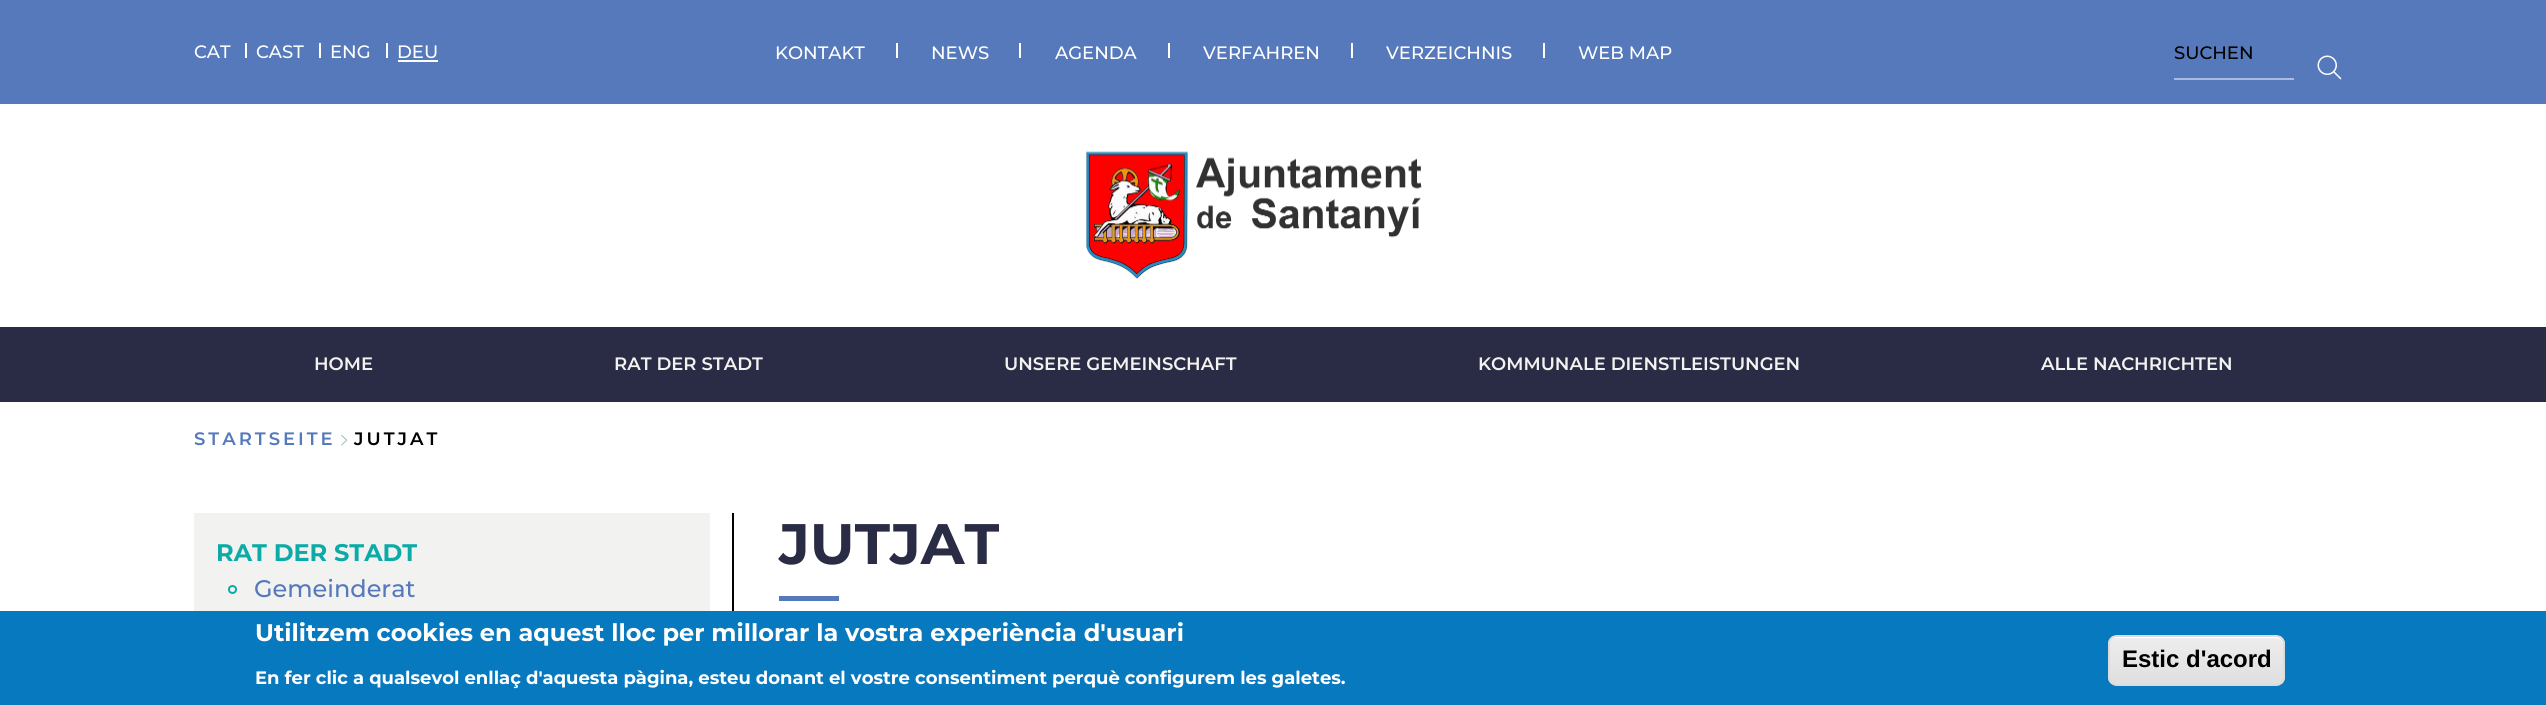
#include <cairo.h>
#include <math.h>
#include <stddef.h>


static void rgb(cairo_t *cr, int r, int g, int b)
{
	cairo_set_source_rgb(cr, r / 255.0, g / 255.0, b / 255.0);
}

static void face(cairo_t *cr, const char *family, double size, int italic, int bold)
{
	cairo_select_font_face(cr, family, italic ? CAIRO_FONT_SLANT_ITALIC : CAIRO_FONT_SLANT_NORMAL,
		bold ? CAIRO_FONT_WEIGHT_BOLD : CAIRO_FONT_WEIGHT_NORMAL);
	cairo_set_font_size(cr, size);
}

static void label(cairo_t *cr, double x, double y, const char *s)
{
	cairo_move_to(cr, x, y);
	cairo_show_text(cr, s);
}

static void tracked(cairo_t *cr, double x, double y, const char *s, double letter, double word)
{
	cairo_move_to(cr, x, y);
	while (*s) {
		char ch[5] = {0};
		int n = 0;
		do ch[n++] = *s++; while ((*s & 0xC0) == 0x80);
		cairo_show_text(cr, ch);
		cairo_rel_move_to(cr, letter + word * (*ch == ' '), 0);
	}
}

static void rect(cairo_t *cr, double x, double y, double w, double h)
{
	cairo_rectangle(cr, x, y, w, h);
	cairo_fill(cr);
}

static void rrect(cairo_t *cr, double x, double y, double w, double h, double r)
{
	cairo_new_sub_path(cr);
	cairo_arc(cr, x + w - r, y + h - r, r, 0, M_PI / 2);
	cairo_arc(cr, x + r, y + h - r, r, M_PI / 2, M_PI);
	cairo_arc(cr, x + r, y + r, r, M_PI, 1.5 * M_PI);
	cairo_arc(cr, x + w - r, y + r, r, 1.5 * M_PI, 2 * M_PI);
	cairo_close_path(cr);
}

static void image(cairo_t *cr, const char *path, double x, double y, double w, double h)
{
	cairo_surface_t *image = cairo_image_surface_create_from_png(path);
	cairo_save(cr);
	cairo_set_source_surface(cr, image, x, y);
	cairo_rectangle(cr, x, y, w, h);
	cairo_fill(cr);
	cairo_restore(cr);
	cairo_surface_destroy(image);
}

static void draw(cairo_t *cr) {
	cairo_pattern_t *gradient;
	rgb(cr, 255, 255, 255);
	cairo_paint(cr);
	rgb(cr, 85, 121, 187);
	rect(cr, 0, 0, 2546, 104);
	face(cr, "Montserrat Medium", 18, 0, 0);
	rgb(cr, 255, 255, 255);
	label(cr, 194, 58, "CAT");
	rect(cr, 245, 43, 2, 15);
	label(cr, 256, 58, "CAST");
	rect(cr, 319, 43, 2, 15);
	label(cr, 330, 58, "ENG");
	rect(cr, 386, 43, 2, 15);
	label(cr, 397, 58, "DEU");
	rect(cr, 398, 60, 40, 2);
	label(cr, 775, 59, "KONTAKT");
	rect(cr, 896, 43, 2, 15);
	label(cr, 931, 59, "NEWS");
	rect(cr, 1019, 43, 2, 15);
	label(cr, 1055, 59, "AGENDA");
	rect(cr, 1168, 43, 2, 15);
	label(cr, 1203, 59, "VERFAHREN");
	rect(cr, 1351, 43, 2, 15);
	label(cr, 1386, 59, "VERZEICHNIS");
	rect(cr, 1543, 43, 2, 15);
	label(cr, 1578, 59, "WEB MAP");
	rgb(cr, 170, 188, 221);
	rect(cr, 2174, 78, 120, 2);
	rgb(cr, 0, 0, 0);
	label(cr, 2174, 59, "SUCHEN");
	image(cr, "image0.png", 2317, 55, 25, 25);
	image(cr, "image1.png", 1086, 151, 336, 128);
	rgb(cr, 41, 44, 68);
	rect(cr, 0, 327, 2546, 75);
	face(cr, "Montserrat SemiBold", 18, 0, 0);
	rgb(cr, 242, 242, 241);
	label(cr, 314, 370, "HOME");
	label(cr, 614, 370, "RAT DER STADT");
	label(cr, 1004, 370, "UNSERE GEMEINSCHAFT");
	label(cr, 1478, 370, "KOMMUNALE DIENSTLEISTUNGEN");
	label(cr, 2041, 370, "ALLE NACHRICHTEN");
	rgb(cr, 85, 121, 187);
	tracked(cr, 194, 445, "STARTSEITE", 3, 0);
	image(cr, "image2.png", 341, 435, 7, 11);
	rgb(cr, 0, 0, 0);
	tracked(cr, 354, 445, "JUTJAT", 3, 0);
	rect(cr, 732, 513, 2, 98);
	rgb(cr, 242, 242, 241);
	rect(cr, 194, 513, 516, 98);
	face(cr, "Montserrat", 24, 0, 1);
	rgb(cr, 12, 171, 168);
	label(cr, 216, 561, "RAT DER STADT");
	cairo_new_path(cr);
	cairo_arc(cr, 232.5, 589.5, 3.5, 0, 2 * M_PI);
	cairo_stroke(cr);
	face(cr, "Montserrat Medium", 24, 0, 0);
	rgb(cr, 85, 121, 187);
	label(cr, 254, 597, "Gemeinderat");
	face(cr, "Montserrat", 57, 0, 1);
	rgb(cr, 41, 44, 68);
	label(cr, 779, 564, "JUTJAT");
	rgb(cr, 85, 121, 187);
	rect(cr, 779, 596, 60, 5);
	rgb(cr, 7, 121, 191);
	rect(cr, 0, 611, 2546, 94);
	face(cr, "Montserrat", 24, 0, 1);
	rgb(cr, 255, 255, 255);
	label(cr, 255, 641, "Utilitzem cookies en aquest lloc per millorar la vostra experiència d'usuari");
	face(cr, "Montserrat", 18, 0, 1);
	label(cr, 255, 684, "En fer clic a qualsevol enllaç d'aquesta pàgina, esteu donant el vostre consentiment perquè configurem les galetes.");
	cairo_save(cr);
	rrect(cr, 2108, 635, 177, 51, 9);
	cairo_clip(cr);
	gradient = cairo_pattern_create_linear(2196, 636, 2196, 684);
	cairo_pattern_add_color_stop_rgba(gradient, 0.05, 0.929, 0.929, 0.929, 1);
	cairo_pattern_add_color_stop_rgba(gradient, 1, 0.875, 0.875, 0.875, 1);
	cairo_set_source(cr, gradient);
	cairo_pattern_destroy(gradient);
	rect(cr, 2108, 636, 177, 48);
	cairo_restore(cr);
	cairo_new_path(cr);
	cairo_move_to(cr, 2116, 638);
	cairo_line_to(cr, 2276, 638);
	cairo_curve_to(cr, 2280, 638, 2283, 641, 2283, 645);
	cairo_line_to(cr, 2283, 644);
	cairo_curve_to(cr, 2283, 640, 2279, 636, 2275, 636);
	cairo_line_to(cr, 2117, 636);
	cairo_curve_to(cr, 2113, 636, 2109, 640, 2109, 644);
	cairo_line_to(cr, 2109, 645);
	cairo_curve_to(cr, 2109, 641, 2112, 638, 2116, 638);
	cairo_close_path(cr);
	cairo_fill(cr);
	rrect(cr, 2109, 636, 175, 49, 8);
	rgb(cr, 220, 220, 220);
	cairo_stroke(cr);
	face(cr, "Liberation Sans", 24, 0, 1);
	rgb(cr, 0, 0, 0);
	label(cr, 2122, 667, "Estic d'acord");
}

int main(void) {
	cairo_surface_t *surface = cairo_image_surface_create(CAIRO_FORMAT_RGB24, 2546, 705);
	cairo_t *cr = cairo_create(surface);
	cairo_font_options_t *options = cairo_font_options_create();
	cairo_font_options_set_hint_metrics(options, CAIRO_HINT_METRICS_OFF);
	cairo_font_options_set_hint_style(options, CAIRO_HINT_STYLE_NONE);
	cairo_set_font_options(cr, options);
	cairo_set_miter_limit(cr, 4);
	draw(cr);
	cairo_surface_write_to_png(surface, "render.png");
	cairo_font_options_destroy(options);
	cairo_destroy(cr);
	cairo_surface_destroy(surface);
	return 0;
}
